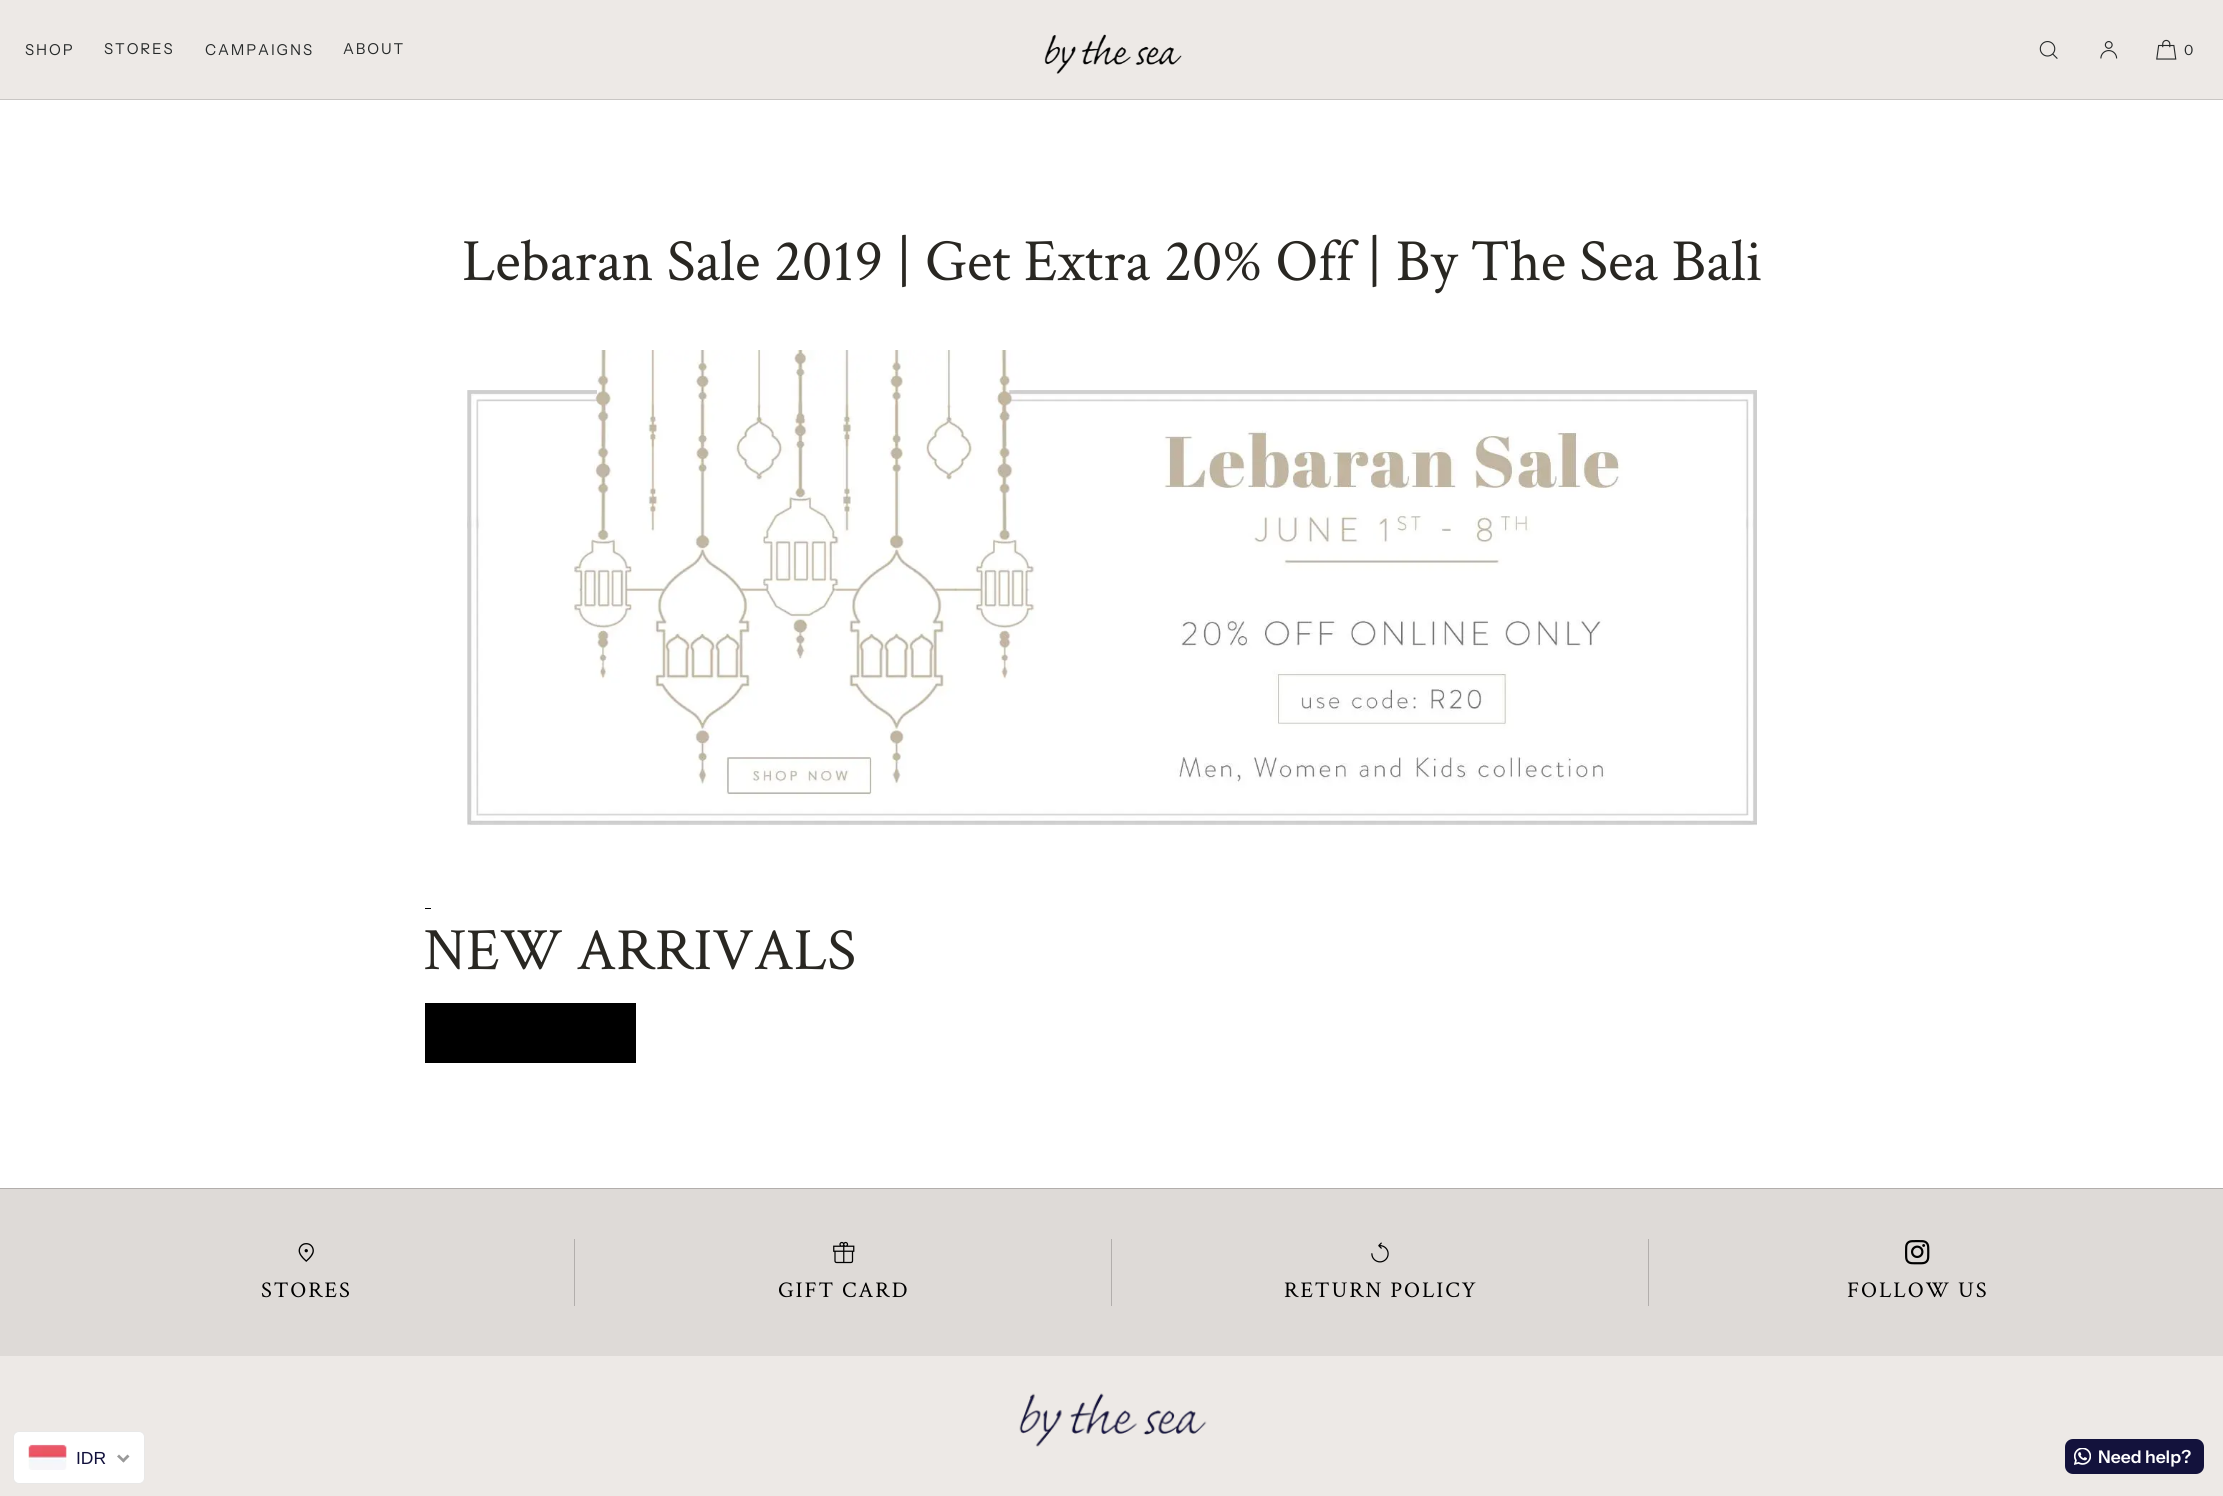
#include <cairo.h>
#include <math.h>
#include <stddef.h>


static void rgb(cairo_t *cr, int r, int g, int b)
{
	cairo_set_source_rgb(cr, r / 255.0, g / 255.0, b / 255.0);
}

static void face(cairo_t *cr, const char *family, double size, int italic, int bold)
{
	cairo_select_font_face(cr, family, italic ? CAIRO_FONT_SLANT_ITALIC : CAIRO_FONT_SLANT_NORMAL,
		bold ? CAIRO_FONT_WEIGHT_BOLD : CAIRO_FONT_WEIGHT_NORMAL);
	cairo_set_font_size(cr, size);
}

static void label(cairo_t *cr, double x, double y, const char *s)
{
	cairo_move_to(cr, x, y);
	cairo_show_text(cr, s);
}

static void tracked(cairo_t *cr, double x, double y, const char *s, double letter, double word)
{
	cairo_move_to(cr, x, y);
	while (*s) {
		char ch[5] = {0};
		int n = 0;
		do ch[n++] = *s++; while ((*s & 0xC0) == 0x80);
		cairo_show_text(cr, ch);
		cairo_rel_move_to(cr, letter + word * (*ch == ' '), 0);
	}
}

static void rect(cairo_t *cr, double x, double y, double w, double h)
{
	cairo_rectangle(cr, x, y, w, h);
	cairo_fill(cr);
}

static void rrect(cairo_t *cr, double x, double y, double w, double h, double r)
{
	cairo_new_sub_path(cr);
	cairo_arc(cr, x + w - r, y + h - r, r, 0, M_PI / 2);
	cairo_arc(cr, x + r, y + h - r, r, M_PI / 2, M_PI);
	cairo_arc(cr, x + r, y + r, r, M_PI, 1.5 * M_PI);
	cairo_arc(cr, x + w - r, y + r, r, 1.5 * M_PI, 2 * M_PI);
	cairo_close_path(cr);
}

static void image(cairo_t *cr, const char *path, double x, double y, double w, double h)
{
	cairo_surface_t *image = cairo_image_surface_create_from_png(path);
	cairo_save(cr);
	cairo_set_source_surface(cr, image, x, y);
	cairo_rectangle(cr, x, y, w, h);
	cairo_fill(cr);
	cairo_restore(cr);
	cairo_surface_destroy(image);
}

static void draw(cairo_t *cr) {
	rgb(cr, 255, 255, 255);
	cairo_paint(cr);
	rgb(cr, 237, 233, 230);
	rect(cr, 0, 0, 2223, 99);
	rgb(cr, 201, 198, 196);
	rect(cr, 0, 99, 2223, 1);
	face(cr, "Instrument Sans", 15, 0, 0);
	rgb(cr, 38, 41, 41);
	tracked(cr, 25, 55, "SHOP", 1.9, 0);
	tracked(cr, 104, 54, "STORES", 1.9, 0);
	tracked(cr, 205, 55, "CAMPAIGNS", 1.9, 0);
	tracked(cr, 343, 54, "ABOUT", 1.9, 0);
	image(cr, "image0.png", 1044, 34, 138, 40);
	image(cr, "image1.png", 2039, 41, 19, 18);
	image(cr, "image2.png", 2100, 41, 18, 18);
	image(cr, "image3.png", 2156, 39, 21, 21);
	face(cr, "Instrument Sans", 14, 0, 0);
	tracked(cr, 2184, 55, "0", 1.9, 0);
	face(cr, "Crimson Text", 60, 0, 0);
	rgb(cr, 41, 39, 34);
	label(cr, 462, 280, "Lebaran Sale 2019 | Get Extra 20% Off | By The Sea Bali");
	image(cr, "image4.png", 467, 350, 1290, 476);
	rgb(cr, 0, 0, 0);
	rect(cr, 425, 908, 6, 1);
	rgb(cr, 41, 39, 34);
	label(cr, 424, 969, "NEW ARRIVALS");
	rgb(cr, 0, 0, 0);
	rect(cr, 425, 1003, 211, 60);
	rgb(cr, 222, 218, 215);
	rect(cr, 0, 1189, 2223, 167);
	rgb(cr, 178, 174, 172);
	rect(cr, 0, 1188, 2223, 1);
	image(cr, "image5.png", 298, 1243, 16, 19);
	rect(cr, 574, 1239, 1, 67);
	face(cr, "Crimson Text", 22.5, 0, 0);
	rgb(cr, 0, 0, 0);
	tracked(cr, 261, 1297, "STORES", 1.9, 0);
	image(cr, "image6.png", 833, 1241, 22, 23);
	rgb(cr, 178, 174, 172);
	rect(cr, 1111, 1239, 1, 67);
	rgb(cr, 0, 0, 0);
	tracked(cr, 778, 1297, "GIFT CARD", 1.9, 0);
	image(cr, "image7.png", 1371, 1242, 18, 21);
	rgb(cr, 178, 174, 172);
	rect(cr, 1648, 1239, 1, 67);
	rgb(cr, 0, 0, 0);
	tracked(cr, 1284, 1297, "RETURN POLICY", 1.9, 0);
	image(cr, "image8.png", 1905, 1240, 25, 25);
	tracked(cr, 1847, 1297, "FOLLOW US", 1.9, 0);
	rgb(cr, 237, 233, 230);
	rect(cr, 0, 1356, 2223, 140);
	image(cr, "image9.png", 1019, 1393, 188, 54);
	rgb(cr, 255, 255, 255);
	rrect(cr, 13.5, 1431.5, 131, 52, 5.5);
	cairo_fill_preserve(cr);
	rgb(cr, 232, 232, 232);
	cairo_set_line_width(cr, 1);
	cairo_stroke(cr);
	image(cr, "image10.png", 28, 1444, 39, 26);
	face(cr, "Liberation Sans", 17.5, 0, 0);
	rgb(cr, 17, 16, 60);
	label(cr, 76, 1464, "IDR");
	rgb(cr, 153, 153, 153);
	cairo_new_path(cr);
	cairo_move_to(cr, 127.5, 1454.5);
	cairo_line_to(cr, 129.5, 1456.5);
	cairo_line_to(cr, 123.5, 1462.5);
	cairo_line_to(cr, 121.5, 1460.5);
	cairo_close_path(cr);
	cairo_fill(cr);
	cairo_new_path(cr);
	cairo_move_to(cr, 119, 1454.5);
	cairo_line_to(cr, 125, 1460.5);
	cairo_line_to(cr, 123.5, 1462.5);
	cairo_line_to(cr, 117, 1456.5);
	cairo_close_path(cr);
	cairo_fill(cr);
	rgb(cr, 19, 18, 60);
	rrect(cr, 2065, 1439, 139, 35, 8);
	cairo_fill(cr);
	image(cr, "image11.png", 2074, 1448, 17, 17);
	face(cr, "Instrument Sans SemiBold", 17.5, 0, 0);
	rgb(cr, 255, 255, 255);
	label(cr, 2098, 1463, "Need help?");
}

int main(void) {
	cairo_surface_t *surface = cairo_image_surface_create(CAIRO_FORMAT_RGB24, 2223, 1496);
	cairo_t *cr = cairo_create(surface);
	cairo_font_options_t *options = cairo_font_options_create();
	cairo_font_options_set_hint_metrics(options, CAIRO_HINT_METRICS_OFF);
	cairo_font_options_set_hint_style(options, CAIRO_HINT_STYLE_NONE);
	cairo_set_font_options(cr, options);
	cairo_set_miter_limit(cr, 4);
	draw(cr);
	cairo_surface_write_to_png(surface, "render.png");
	cairo_font_options_destroy(options);
	cairo_destroy(cr);
	cairo_surface_destroy(surface);
	return 0;
}
